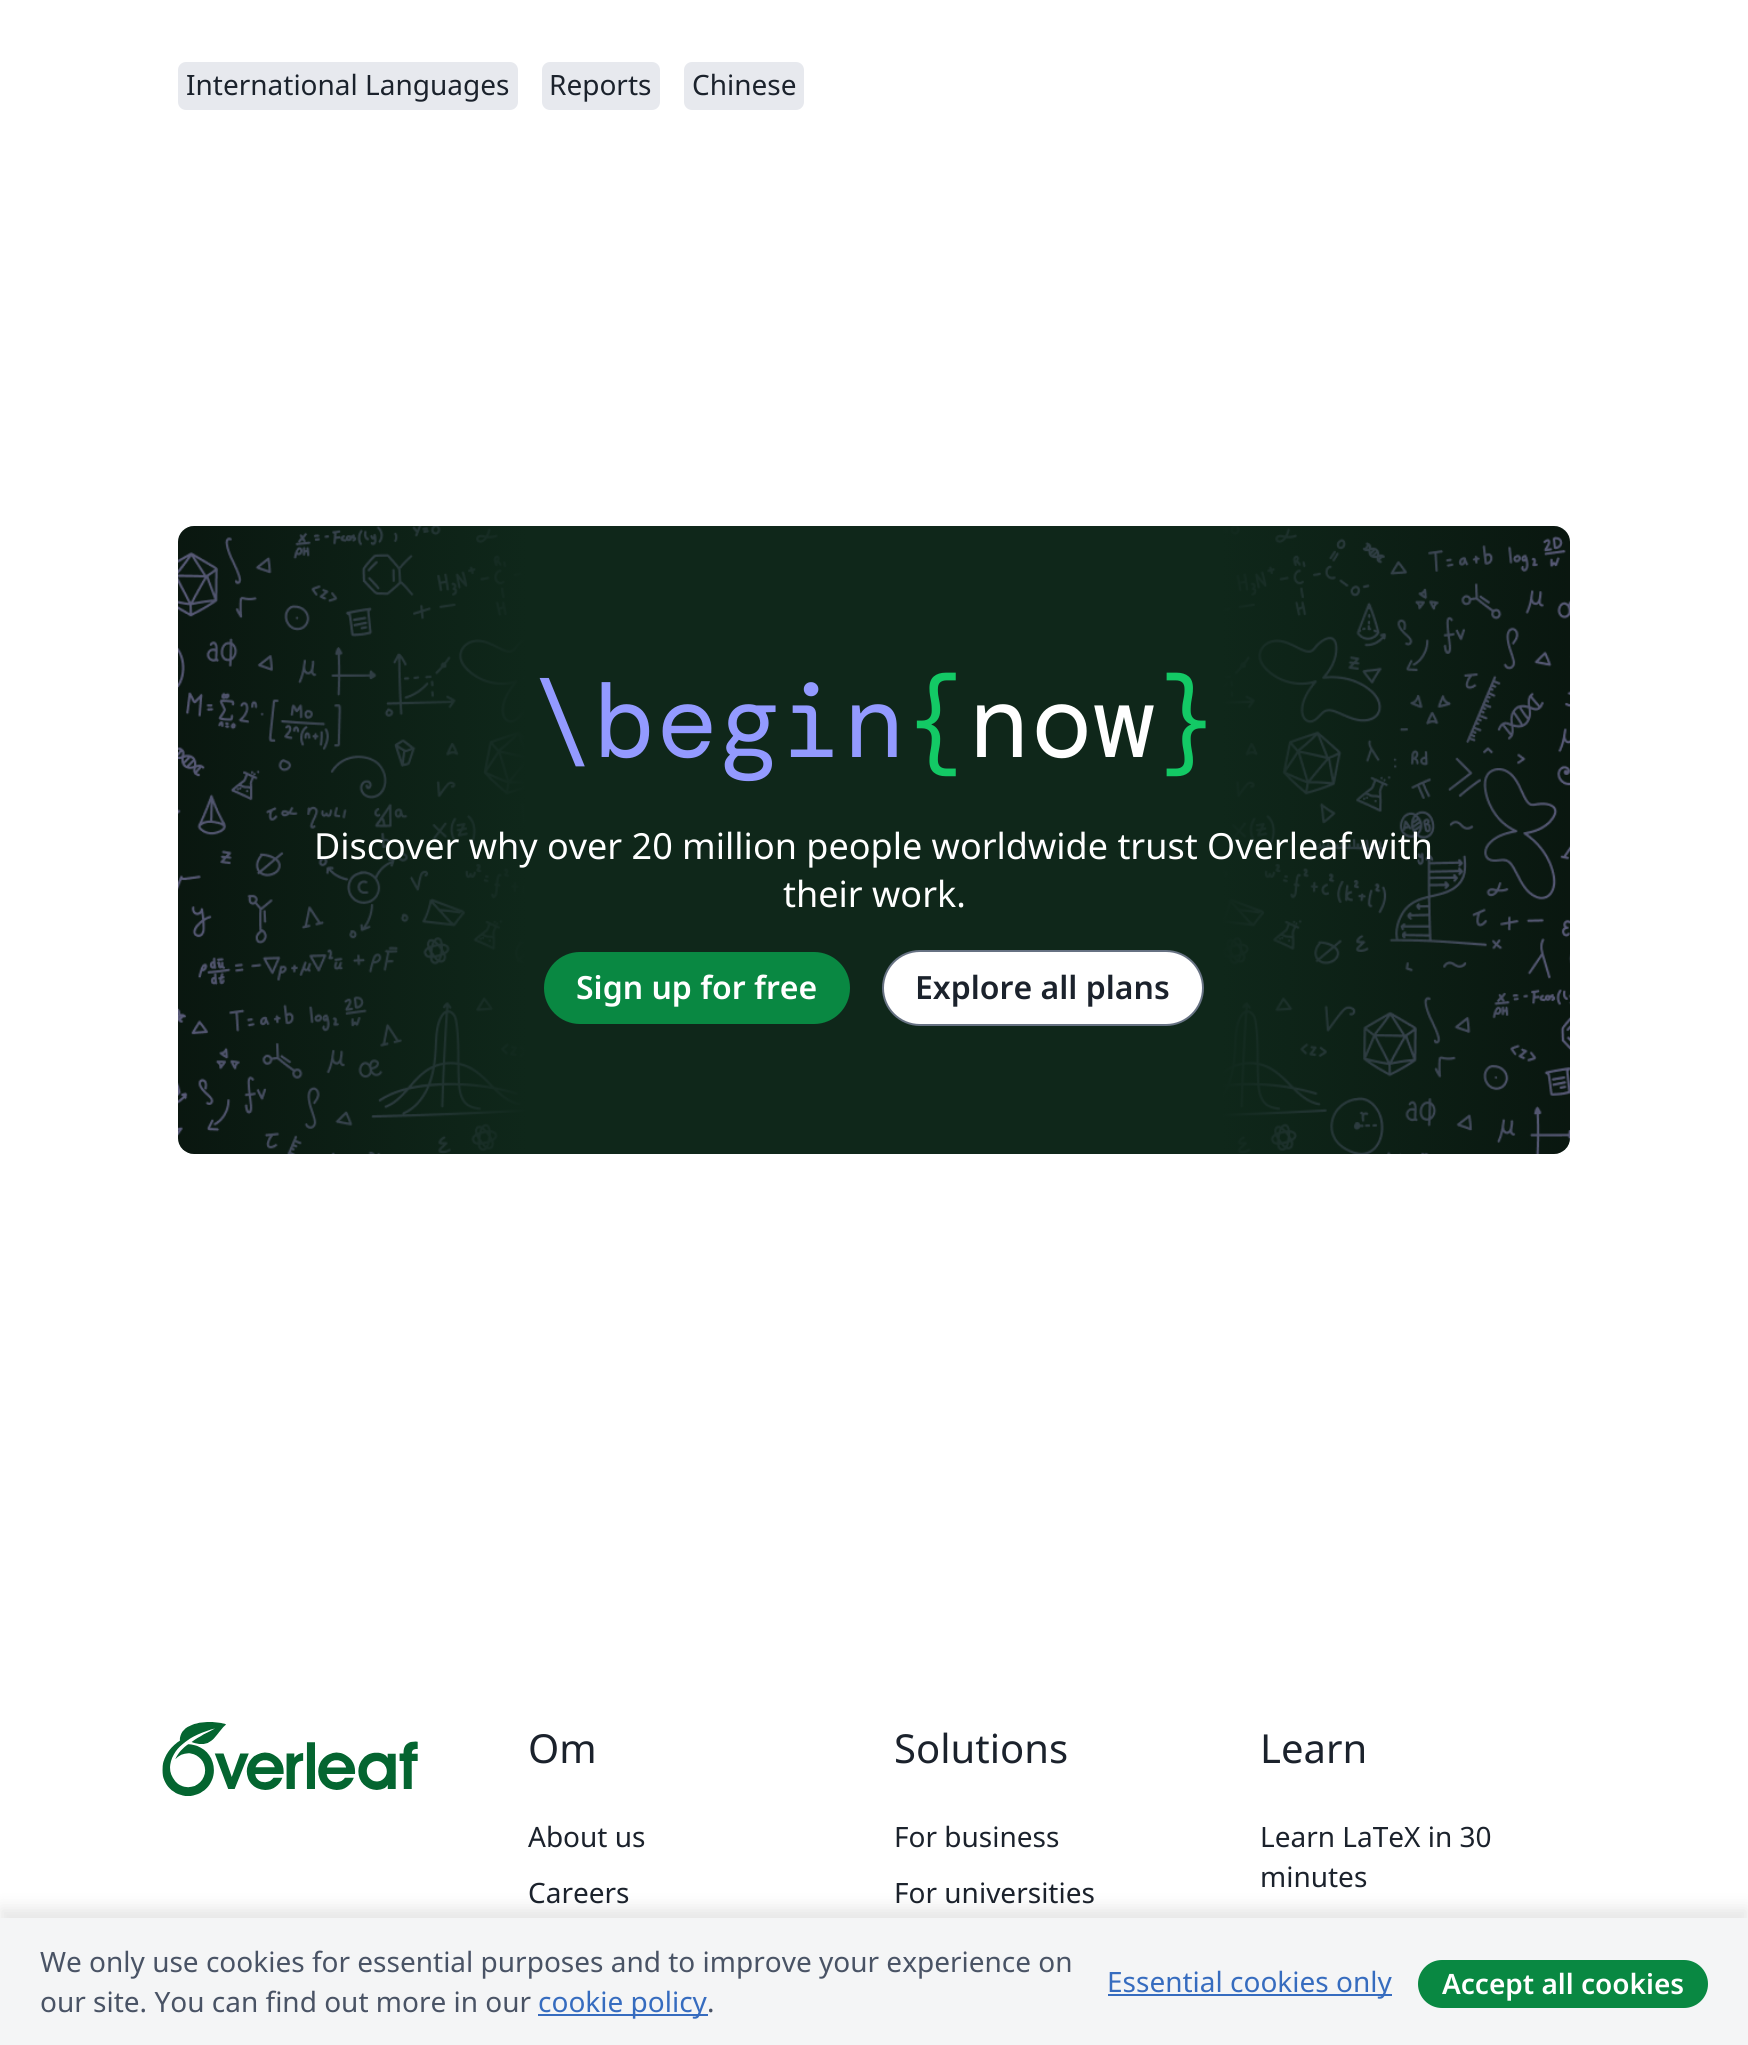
#include <cairo.h>
#include <math.h>
#include <stddef.h>


static void rgb(cairo_t *cr, int r, int g, int b)
{
	cairo_set_source_rgb(cr, r / 255.0, g / 255.0, b / 255.0);
}

static void face(cairo_t *cr, const char *family, double size, int italic, int bold)
{
	cairo_select_font_face(cr, family, italic ? CAIRO_FONT_SLANT_ITALIC : CAIRO_FONT_SLANT_NORMAL,
		bold ? CAIRO_FONT_WEIGHT_BOLD : CAIRO_FONT_WEIGHT_NORMAL);
	cairo_set_font_size(cr, size);
}

static void label(cairo_t *cr, double x, double y, const char *s)
{
	cairo_move_to(cr, x, y);
	cairo_show_text(cr, s);
}

static void rect(cairo_t *cr, double x, double y, double w, double h)
{
	cairo_rectangle(cr, x, y, w, h);
	cairo_fill(cr);
}

static void rrect(cairo_t *cr, double x, double y, double w, double h, double r)
{
	cairo_new_sub_path(cr);
	cairo_arc(cr, x + w - r, y + h - r, r, 0, M_PI / 2);
	cairo_arc(cr, x + r, y + h - r, r, M_PI / 2, M_PI);
	cairo_arc(cr, x + r, y + r, r, M_PI, 1.5 * M_PI);
	cairo_arc(cr, x + w - r, y + r, r, 1.5 * M_PI, 2 * M_PI);
	cairo_close_path(cr);
}

static void soft_shadow(cairo_t *cr, double x, double y, double w, double h, double r, double blur, double alpha)
{
	cairo_push_group_with_content(cr, CAIRO_CONTENT_ALPHA);
	cairo_set_operator(cr, CAIRO_OPERATOR_SOURCE);
	for (int i = 15; i >= -15 && fmin(w, h) + blur * i / 3 > 0; i -= 2) {
		double e = blur * i / 6;
		cairo_set_source_rgba(cr, 0, 0, 0, alpha * erfc((i - 1) / 8.5) / 2);
		rrect(cr, x - e, y - e, w + 2 * e, h + 2 * e, fmax(0, fmin(r + e + blur * .6, fmin(w, h) / 2 + e)));
		cairo_fill(cr);
	}
	cairo_pattern_t *soft = cairo_pop_group(cr);
	cairo_mask(cr, soft);
	cairo_pattern_destroy(soft);
}

static void image(cairo_t *cr, const char *path, double x, double y, double w, double h)
{
	cairo_surface_t *image = cairo_image_surface_create_from_png(path);
	cairo_save(cr);
	cairo_set_source_surface(cr, image, x, y);
	cairo_rectangle(cr, x, y, w, h);
	cairo_fill(cr);
	cairo_restore(cr);
	cairo_surface_destroy(image);
}

static void draw(cairo_t *cr) {
	rgb(cr, 255, 255, 255);
	cairo_paint(cr);
	rgb(cr, 231, 233, 238);
	rrect(cr, 178, 62, 340, 48, 8);
	cairo_fill(cr);
	face(cr, "Noto Sans", 28, 0, 0);
	rgb(cr, 27, 34, 44);
	label(cr, 186, 95, "International Languages");
	rgb(cr, 231, 233, 238);
	rrect(cr, 542, 62, 118, 48, 8);
	cairo_fill(cr);
	rgb(cr, 27, 34, 44);
	label(cr, 549, 95, "Reports");
	rgb(cr, 231, 233, 238);
	rrect(cr, 684, 62, 120, 48, 8);
	cairo_fill(cr);
	rgb(cr, 27, 34, 44);
	label(cr, 692, 95, "Chinese");
	rgb(cr, 244, 245, 246);
	rrect(cr, 178, 526, 1392, 628, 16);
	cairo_fill(cr);
	image(cr, "image0.png", 178, 526, 1392, 628);
	face(cr, "DM Mono", 104, 0, 0);
	rgb(cr, 147, 154, 255);
	label(cr, 531, 757, "\\begin");
	rgb(cr, 19, 201, 101);
	label(cr, 905, 757, "{");
	rgb(cr, 255, 255, 255);
	label(cr, 968, 757, "now");
	rgb(cr, 19, 201, 101);
	label(cr, 1155, 757, "}");
	face(cr, "Noto Sans", 36, 0, 0);
	rgb(cr, 255, 255, 255);
	label(cr, 314, 859, "Discover why over 20 million people worldwide trust Overleaf with");
	label(cr, 783, 907, "their work.");
	rgb(cr, 9, 136, 66);
	rrect(cr, 544, 952, 306, 72, 36);
	cairo_fill(cr);
	face(cr, "Noto Sans SemiBold", 32, 0, 0);
	rgb(cr, 255, 255, 255);
	label(cr, 576, 999, "Sign up for free");
	rrect(cr, 883, 951, 320, 74, 37);
	cairo_fill_preserve(cr);
	rgb(cr, 103, 114, 131);
	cairo_stroke(cr);
	rgb(cr, 27, 34, 44);
	label(cr, 915, 999, "Explore all plans");
	image(cr, "image1.png", 162, 1722, 256, 74);
	face(cr, "Noto Sans", 40, 0, 0);
	label(cr, 528, 1763, "Om");
	face(cr, "Noto Sans", 28, 0, 0);
	label(cr, 528, 1847, "About us");
	label(cr, 528, 1903, "Careers");
	face(cr, "Noto Sans", 40, 0, 0);
	label(cr, 894, 1763, "Solutions");
	face(cr, "Noto Sans", 28, 0, 0);
	label(cr, 894, 1847, "For business");
	label(cr, 894, 1903, "For universities");
	face(cr, "Noto Sans", 40, 0, 0);
	label(cr, 1260, 1763, "Learn");
	face(cr, "Noto Sans", 28, 0, 0);
	label(cr, 1260, 1847, "Learn LaTeX in 30");
	label(cr, 1260, 1887, "minutes");
	rgb(cr, 0, 0, 0);
	soft_shadow(cr, 0, 1908, 1748, 128, 0, 8, 0.1);
	rgb(cr, 244, 245, 246);
	rect(cr, 0, 1918, 1748, 127);
	rgb(cr, 73, 83, 101);
	label(cr, 40, 1972, "We only use cookies for essential purposes and to improve your experience on");
	label(cr, 40, 2012, "our site. You can find out more in our");
	rgb(cr, 54, 108, 191);
	rect(cr, 538, 2014, 170, 2);
	label(cr, 538, 2012, "cookie policy");
	rgb(cr, 73, 83, 101);
	label(cr, 707, 2012, ".");
	rgb(cr, 54, 108, 191);
	rect(cr, 1108, 1994, 284, 2);
	label(cr, 1107, 1992, "Essential cookies only");
	rgb(cr, 9, 136, 66);
	rrect(cr, 1418, 1960, 290, 48, 24);
	cairo_fill(cr);
	face(cr, "Noto Sans SemiBold", 28, 0, 0);
	rgb(cr, 255, 255, 255);
	label(cr, 1442, 1994, "Accept all cookies");
}

int main(void) {
	cairo_surface_t *surface = cairo_image_surface_create(CAIRO_FORMAT_RGB24, 1748, 2045);
	cairo_t *cr = cairo_create(surface);
	cairo_font_options_t *options = cairo_font_options_create();
	cairo_font_options_set_hint_metrics(options, CAIRO_HINT_METRICS_OFF);
	cairo_font_options_set_hint_style(options, CAIRO_HINT_STYLE_NONE);
	cairo_set_font_options(cr, options);
	cairo_set_miter_limit(cr, 4);
	draw(cr);
	cairo_surface_write_to_png(surface, "render.png");
	cairo_font_options_destroy(options);
	cairo_destroy(cr);
	cairo_surface_destroy(surface);
	return 0;
}
